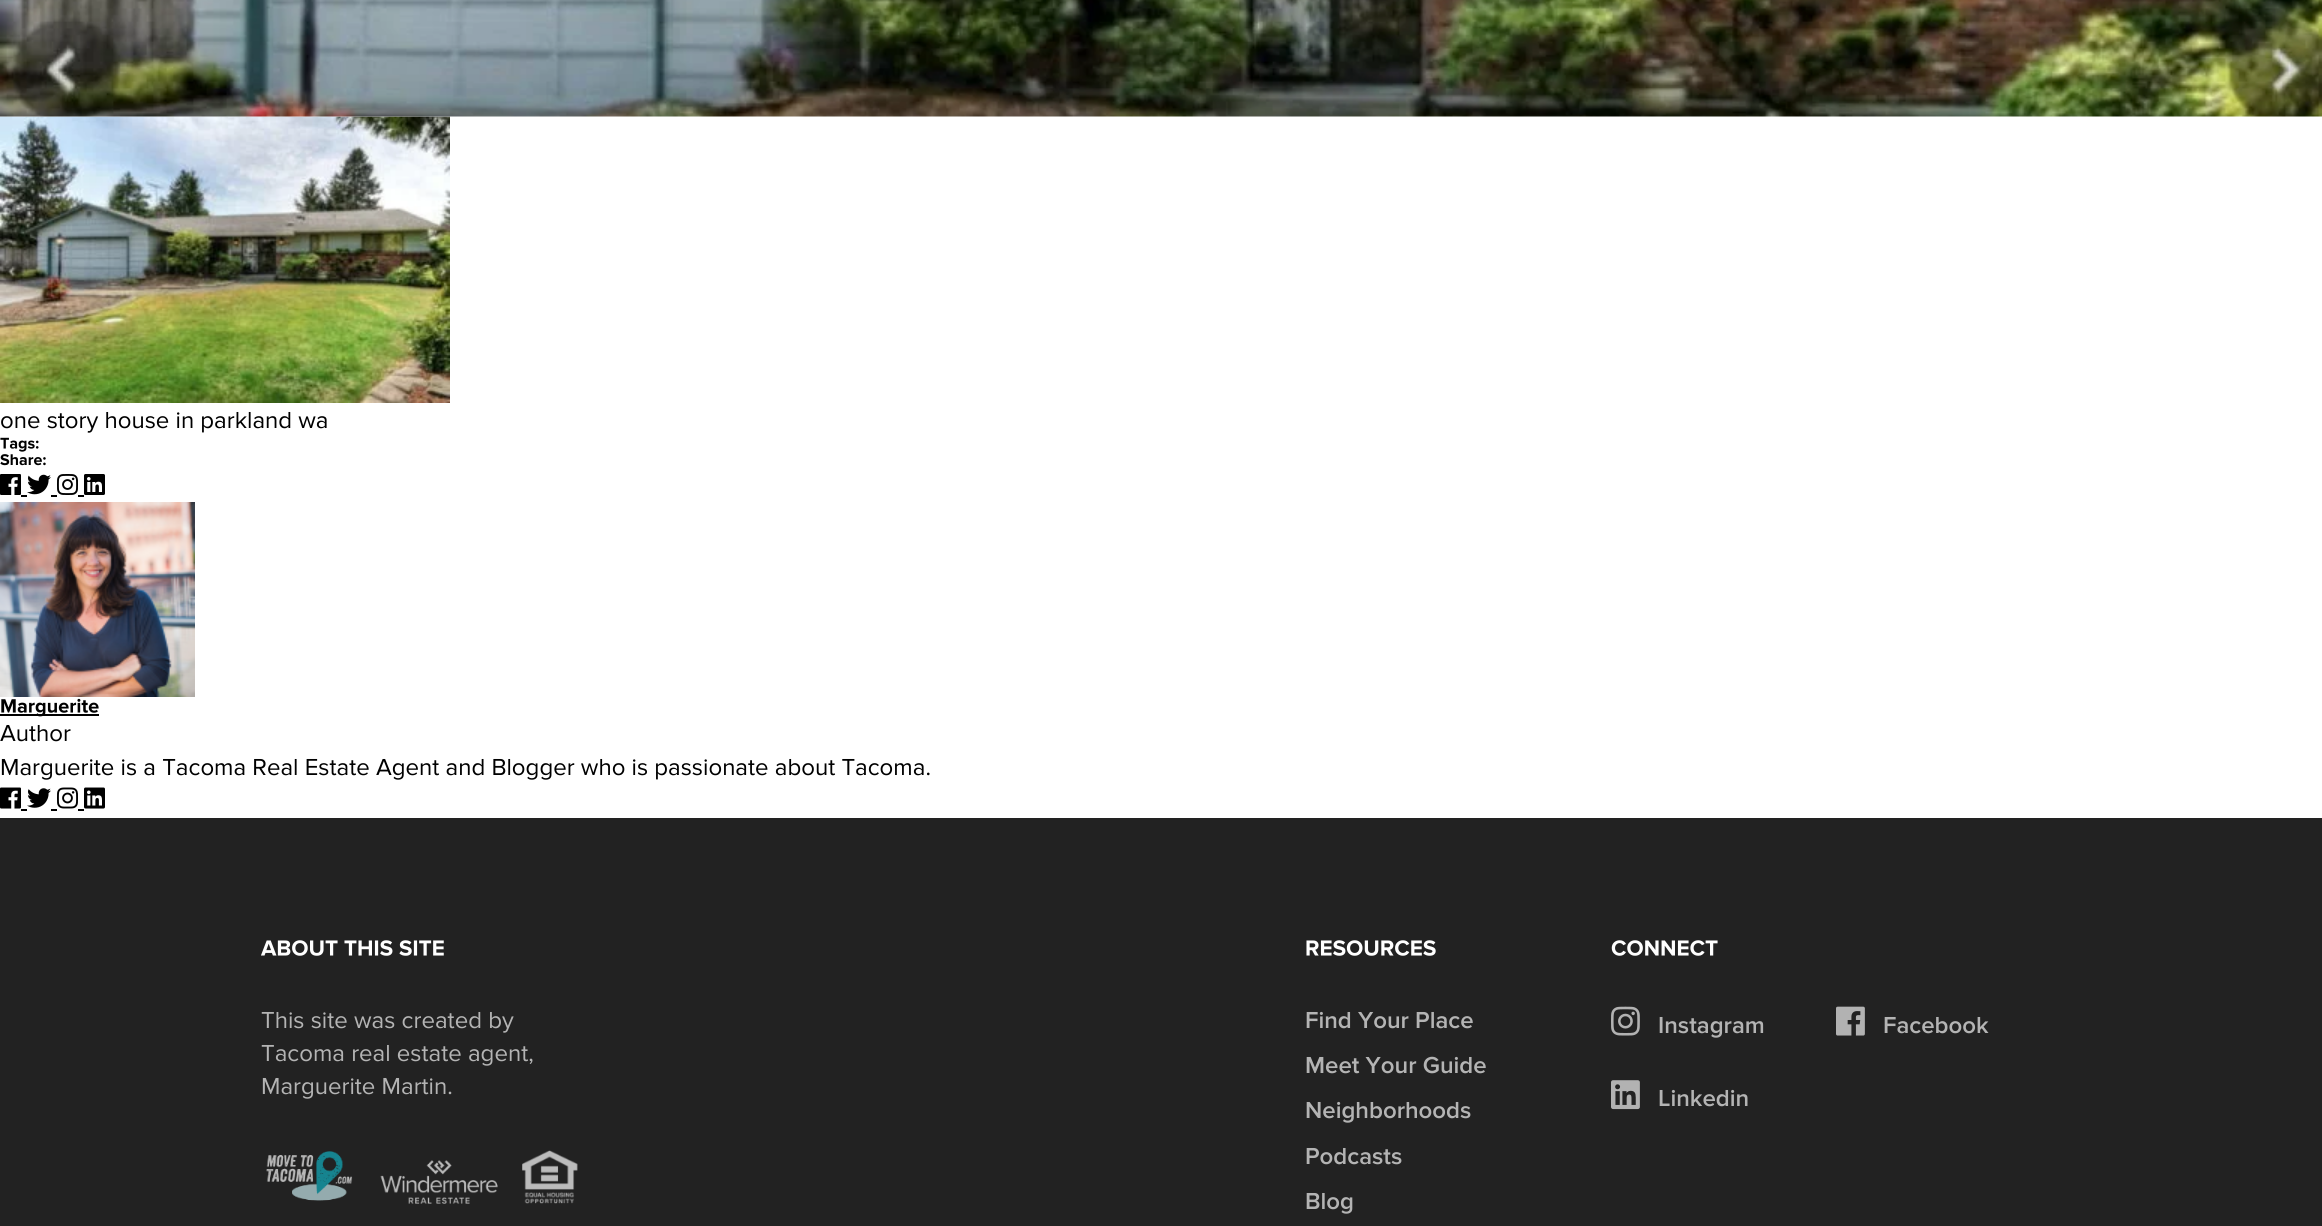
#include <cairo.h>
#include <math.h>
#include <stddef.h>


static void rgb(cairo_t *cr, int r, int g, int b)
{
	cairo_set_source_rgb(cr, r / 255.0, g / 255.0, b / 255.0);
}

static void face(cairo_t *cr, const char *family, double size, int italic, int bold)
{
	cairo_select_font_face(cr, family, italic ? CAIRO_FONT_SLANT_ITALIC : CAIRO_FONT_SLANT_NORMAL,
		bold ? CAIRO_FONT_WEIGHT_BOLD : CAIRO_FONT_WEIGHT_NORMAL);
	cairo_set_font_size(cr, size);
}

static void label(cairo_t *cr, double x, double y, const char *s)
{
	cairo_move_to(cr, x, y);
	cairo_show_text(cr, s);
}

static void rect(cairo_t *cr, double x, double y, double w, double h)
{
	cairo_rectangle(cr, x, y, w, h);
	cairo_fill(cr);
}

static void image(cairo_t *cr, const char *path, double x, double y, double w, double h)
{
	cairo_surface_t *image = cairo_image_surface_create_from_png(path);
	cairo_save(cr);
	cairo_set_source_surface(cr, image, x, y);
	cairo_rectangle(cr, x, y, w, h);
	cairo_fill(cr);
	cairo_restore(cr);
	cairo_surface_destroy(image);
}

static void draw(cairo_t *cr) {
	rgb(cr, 255, 255, 255);
	cairo_paint(cr);
	image(cr, "image1.png", 0, 116, 450, 287);
	image(cr, "image0.png", 0, 0, 2322, 117);
	face(cr, "Proxima Nova", 24, 0, 0);
	rgb(cr, 0, 0, 0);
	label(cr, 0, 428, "one story house in parkland wa");
	image(cr, "image2.png", 0, 437, 39, 15);
	image(cr, "image3.png", 0, 454, 46, 12);
	image(cr, "image4.png", 0, 474, 21, 21);
	rect(cr, 21, 495, 6, 2);
	image(cr, "image5.png", 27, 474, 24, 21);
	rect(cr, 51, 495, 6, 2);
	image(cr, "image6.png", 57, 474, 21, 21);
	rect(cr, 78, 495, 6, 2);
	image(cr, "image7.png", 84, 474, 21, 21);
	image(cr, "image8.png", 0, 502, 195, 195);
	rect(cr, 0, 714, 99, 2);
	image(cr, "image9.png", 1, 698, 98, 19);
	label(cr, 0, 741, "Author");
	label(cr, 0, 775, "Marguerite is a Tacoma Real Estate Agent and Blogger who is passionate about Tacoma.");
	image(cr, "image10.png", 0, 787, 21, 22);
	rect(cr, 21, 809, 6, 2);
	image(cr, "image11.png", 27, 788, 24, 20);
	rect(cr, 51, 809, 6, 2);
	image(cr, "image12.png", 57, 787, 21, 22);
	rect(cr, 78, 809, 6, 2);
	image(cr, "image13.png", 84, 787, 21, 22);
	rgb(cr, 34, 34, 34);
	rect(cr, 0, 818, 2322, 408);
	image(cr, "image14.png", 261, 940, 183, 16);
	rgb(cr, 180, 180, 180);
	label(cr, 261, 1028, "This site was created by");
	label(cr, 261, 1061, "Tacoma real estate agent,");
	label(cr, 261, 1094, "Marguerite Martin.");
	image(cr, "image15.png", 266, 1151, 87, 50);
	image(cr, "image16.png", 380, 1160, 118, 44);
	image(cr, "image17.png", 522, 1150, 56, 54);
	image(cr, "image18.png", 1306, 940, 130, 16);
	face(cr, "Proxima Nova SemiBold", 24, 0, 0);
	label(cr, 1305, 1028, "Find Your Place");
	label(cr, 1305, 1073, "Meet Your Guide");
	label(cr, 1305, 1118, "Neighborhoods");
	label(cr, 1305, 1164, "Podcasts");
	label(cr, 1305, 1209, "Blog");
	image(cr, "image19.png", 1611, 940, 107, 16);
	image(cr, "image20.png", 1611, 1006, 29, 30);
	label(cr, 1658, 1033, "Instagram");
	image(cr, "image21.png", 1836, 1006, 29, 30);
	label(cr, 1883, 1033, "Facebook");
	image(cr, "image22.png", 1611, 1080, 29, 30);
	label(cr, 1658, 1106, "Linkedin");
}

int main(void) {
	cairo_surface_t *surface = cairo_image_surface_create(CAIRO_FORMAT_RGB24, 2322, 1226);
	cairo_t *cr = cairo_create(surface);
	cairo_font_options_t *options = cairo_font_options_create();
	cairo_font_options_set_hint_metrics(options, CAIRO_HINT_METRICS_OFF);
	cairo_font_options_set_hint_style(options, CAIRO_HINT_STYLE_NONE);
	cairo_set_font_options(cr, options);
	cairo_set_miter_limit(cr, 4);
	draw(cr);
	cairo_surface_write_to_png(surface, "render.png");
	cairo_font_options_destroy(options);
	cairo_destroy(cr);
	cairo_surface_destroy(surface);
	return 0;
}
